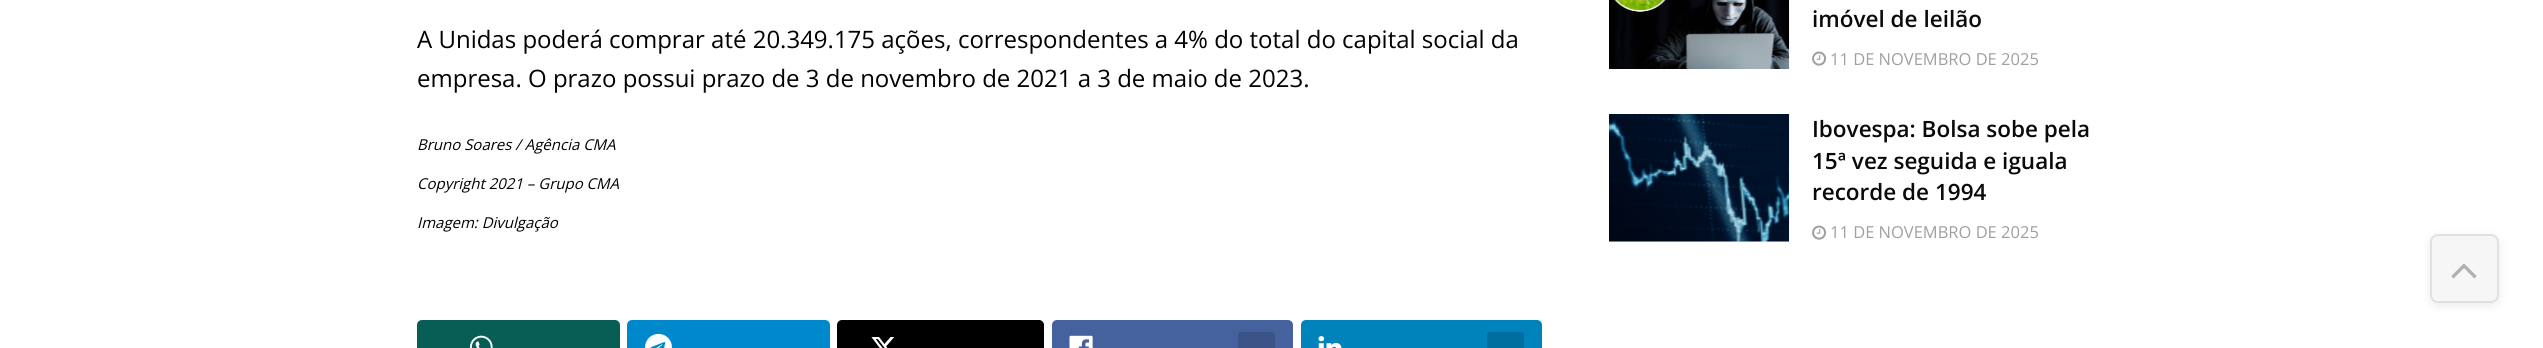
#include <cairo.h>
#include <math.h>
#include <stddef.h>


static void rgb(cairo_t *cr, int r, int g, int b)
{
	cairo_set_source_rgb(cr, r / 255.0, g / 255.0, b / 255.0);
}

static void face(cairo_t *cr, const char *family, double size, int italic, int bold)
{
	cairo_select_font_face(cr, family, italic ? CAIRO_FONT_SLANT_ITALIC : CAIRO_FONT_SLANT_NORMAL,
		bold ? CAIRO_FONT_WEIGHT_BOLD : CAIRO_FONT_WEIGHT_NORMAL);
	cairo_set_font_size(cr, size);
}

static void label(cairo_t *cr, double x, double y, const char *s)
{
	cairo_move_to(cr, x, y);
	cairo_show_text(cr, s);
}

static void rect(cairo_t *cr, double x, double y, double w, double h)
{
	cairo_rectangle(cr, x, y, w, h);
	cairo_fill(cr);
}

static void rrect(cairo_t *cr, double x, double y, double w, double h, double r)
{
	cairo_new_sub_path(cr);
	cairo_arc(cr, x + w - r, y + h - r, r, 0, M_PI / 2);
	cairo_arc(cr, x + r, y + h - r, r, M_PI / 2, M_PI);
	cairo_arc(cr, x + r, y + r, r, M_PI, 1.5 * M_PI);
	cairo_arc(cr, x + w - r, y + r, r, 1.5 * M_PI, 2 * M_PI);
	cairo_close_path(cr);
}

static void soft_shadow(cairo_t *cr, double x, double y, double w, double h, double r, double blur, double alpha)
{
	cairo_push_group_with_content(cr, CAIRO_CONTENT_ALPHA);
	cairo_set_operator(cr, CAIRO_OPERATOR_SOURCE);
	for (int i = 15; i >= -15 && fmin(w, h) + blur * i / 3 > 0; i -= 2) {
		double e = blur * i / 6;
		cairo_set_source_rgba(cr, 0, 0, 0, alpha * erfc((i - 1) / 8.5) / 2);
		rrect(cr, x - e, y - e, w + 2 * e, h + 2 * e, fmax(0, fmin(r + e + blur * .6, fmin(w, h) / 2 + e)));
		cairo_fill(cr);
	}
	cairo_pattern_t *soft = cairo_pop_group(cr);
	cairo_mask(cr, soft);
	cairo_pattern_destroy(soft);
}

static void image(cairo_t *cr, const char *path, double x, double y, double w, double h)
{
	cairo_surface_t *image = cairo_image_surface_create_from_png(path);
	cairo_save(cr);
	cairo_set_source_surface(cr, image, x, y);
	cairo_rectangle(cr, x, y, w, h);
	cairo_fill(cr);
	cairo_restore(cr);
	cairo_surface_destroy(image);
}

static void draw(cairo_t *cr) {
	rgb(cr, 255, 255, 255);
	cairo_paint(cr);
	face(cr, "Open Sans", 24, 0, 0);
	rgb(cr, 0, 0, 0);
	label(cr, 417, 48, "A Unidas poderá comprar até 20.349.175 ações, correspondentes a 4% do total do capital social da");
	label(cr, 417, 87, "empresa. O prazo possui prazo de 3 de novembro de 2021 a 3 de maio de 2023.");
	face(cr, "Open Sans", 15, 1, 0);
	label(cr, 417, 150, "Bruno Soares / Agência CMA");
	label(cr, 417, 189, "Copyright 2021 – Grupo CMA");
	label(cr, 417, 228, "Imagem: Divulgação");
	rgb(cr, 7, 94, 84);
	rrect(cr, 417, 320, 203, 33, 5);
	cairo_fill(cr);
	image(cr, "image0.png", 469, 335, 24, 13);
	rgb(cr, 0, 136, 204);
	rrect(cr, 627, 320, 203, 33, 5);
	cairo_fill(cr);
	image(cr, "image1.png", 645, 333, 27, 15);
	rgb(cr, 0, 0, 0);
	rrect(cr, 837, 320, 207, 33, 5);
	cairo_fill(cr);
	image(cr, "image2.png", 871, 337, 24, 11);
	rgb(cr, 69, 98, 159);
	rrect(cr, 1052, 320, 241, 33, 5);
	cairo_fill(cr);
	image(cr, "image3.png", 1069, 335, 24, 13);
	rgb(cr, 59, 83, 135);
	rrect(cr, 1238, 332, 37, 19, 3);
	cairo_fill(cr);
	rgb(cr, 0, 131, 187);
	rrect(cr, 1301, 320, 241, 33, 5);
	cairo_fill(cr);
	image(cr, "image4.png", 1318, 336, 24, 12);
	rgb(cr, 0, 111, 159);
	rrect(cr, 1487, 332, 37, 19, 3);
	cairo_fill(cr);
	rgb(cr, 247, 247, 247);
	rect(cr, 1789, 0, 1, 69);
	image(cr, "image5.png", 1609, 0, 180, 69);
	face(cr, "Open Sans SemiBold", 22.5, 0, 0);
	rgb(cr, 10, 10, 10);
	label(cr, 1812, 27, "imóvel de leilão");
	image(cr, "image6.png", 1812, 51, 15, 15);
	face(cr, "Open Sans", 16.5, 0, 0);
	rgb(cr, 160, 160, 160);
	label(cr, 1830, 65, "11 DE NOVEMBRO DE 2025");
	rgb(cr, 247, 247, 247);
	rect(cr, 1610, 114, 180, 128);
	image(cr, "image7.png", 1609, 114, 180, 128);
	face(cr, "Open Sans SemiBold", 22.5, 0, 0);
	rgb(cr, 10, 10, 10);
	label(cr, 1812, 137, "Ibovespa: Bolsa sobe pela");
	label(cr, 1812, 169, "15ª vez seguida e iguala");
	label(cr, 1812, 200, "recorde de 1994");
	image(cr, "image6.png", 1812, 225, 15, 15);
	face(cr, "Open Sans", 16.5, 0, 0);
	rgb(cr, 160, 160, 160);
	label(cr, 1830, 238, "11 DE NOVEMBRO DE 2025");
	cairo_save(cr);
	cairo_set_fill_rule(cr, CAIRO_FILL_RULE_EVEN_ODD);
	cairo_new_path(cr);
	cairo_move_to(cr, 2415, 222);
	cairo_line_to(cr, 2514, 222);
	cairo_line_to(cr, 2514, 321);
	cairo_line_to(cr, 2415, 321);
	cairo_close_path(cr);
	cairo_move_to(cr, 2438, 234);
	cairo_line_to(cr, 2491, 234);
	cairo_curve_to(cr, 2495.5, 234, 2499, 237.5, 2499, 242);
	cairo_line_to(cr, 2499, 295);
	cairo_curve_to(cr, 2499, 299.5, 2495.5, 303, 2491, 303);
	cairo_line_to(cr, 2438, 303);
	cairo_curve_to(cr, 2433.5, 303, 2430, 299.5, 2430, 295);
	cairo_line_to(cr, 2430, 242);
	cairo_curve_to(cr, 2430, 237.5, 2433.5, 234, 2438, 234);
	cairo_close_path(cr);
	cairo_clip(cr);
	rgb(cr, 51, 51, 51);
	soft_shadow(cr, 2430, 237, 69, 69, 8, 4.5, 0.1);
	cairo_restore(cr);
	cairo_set_source_rgba(cr, 0.765, 0.765, 0.765, 0.15);
	rrect(cr, 2430, 234, 69, 69, 8);
	cairo_fill(cr);
	rrect(cr, 2431, 235, 67, 67, 7);
	cairo_set_source_rgba(cr, 0.2, 0.2, 0.2, 0.11);
	cairo_stroke(cr);
	image(cr, "image8.png", 2451, 263, 26, 16);
}

int main(void) {
	cairo_surface_t *surface = cairo_image_surface_create(CAIRO_FORMAT_RGB24, 2543, 348);
	cairo_t *cr = cairo_create(surface);
	cairo_font_options_t *options = cairo_font_options_create();
	cairo_font_options_set_hint_metrics(options, CAIRO_HINT_METRICS_OFF);
	cairo_font_options_set_hint_style(options, CAIRO_HINT_STYLE_NONE);
	cairo_set_font_options(cr, options);
	cairo_set_miter_limit(cr, 4);
	draw(cr);
	cairo_surface_write_to_png(surface, "render.png");
	cairo_font_options_destroy(options);
	cairo_destroy(cr);
	cairo_surface_destroy(surface);
	return 0;
}
